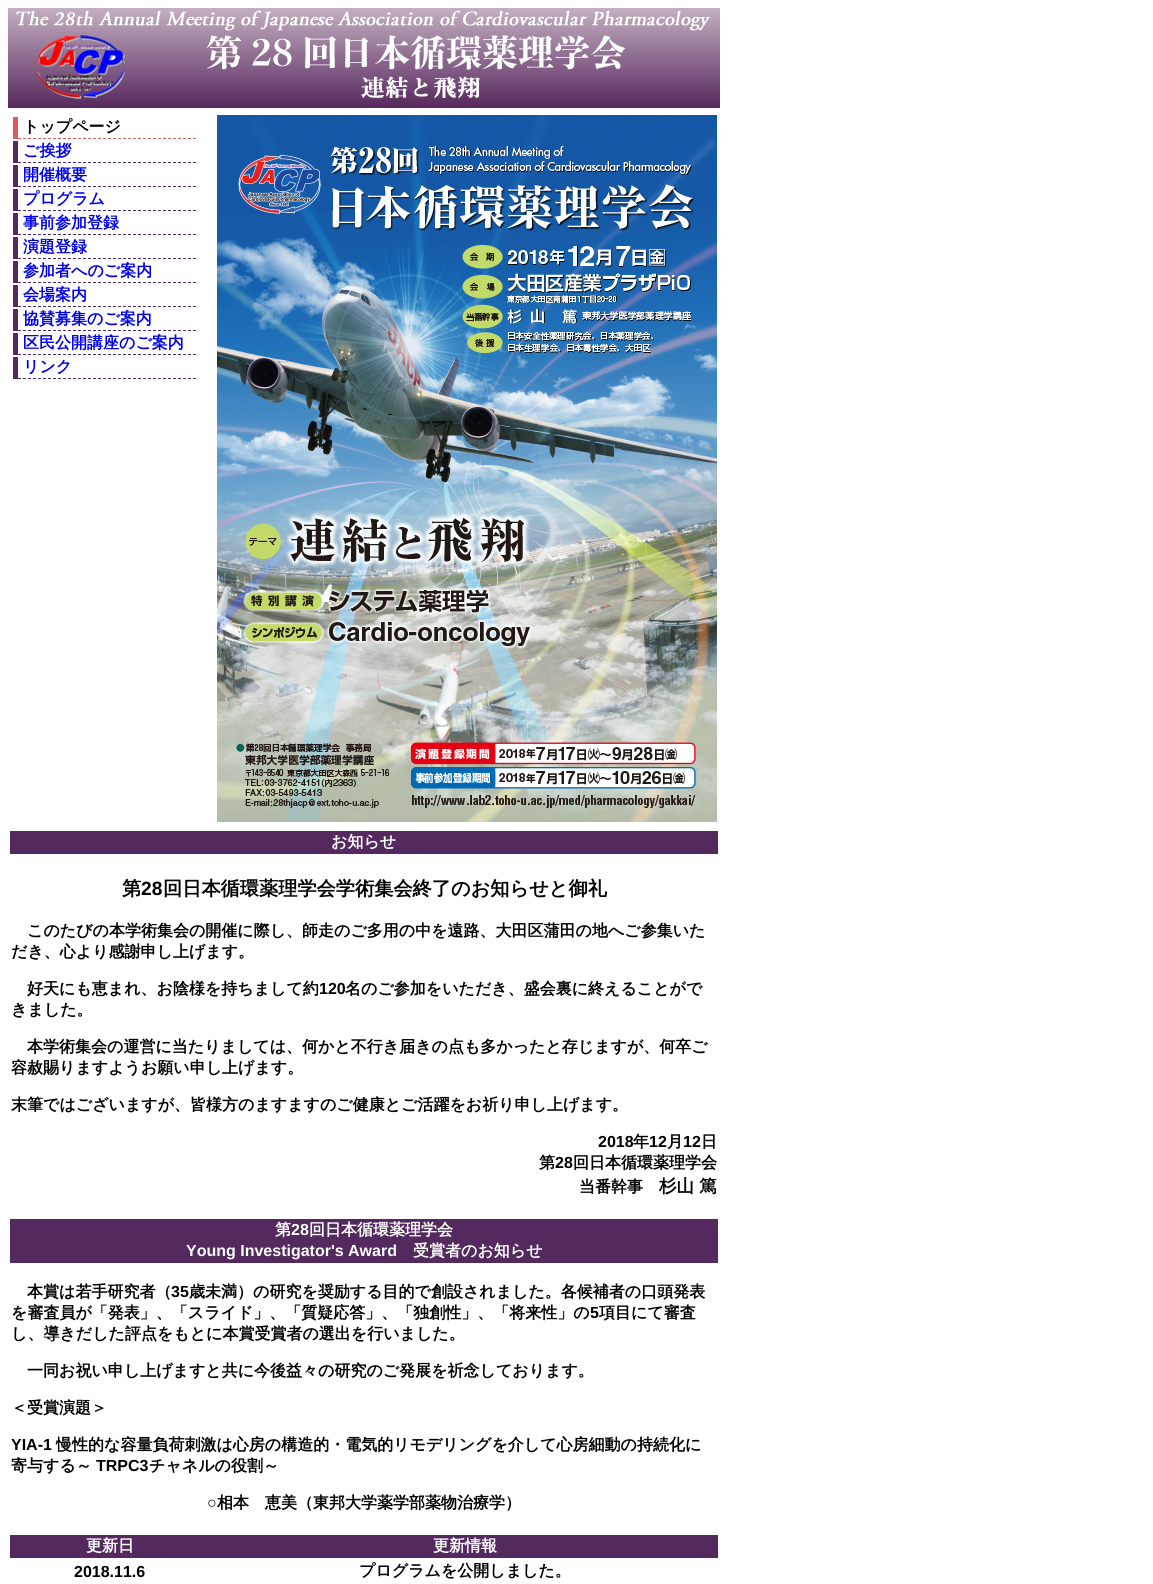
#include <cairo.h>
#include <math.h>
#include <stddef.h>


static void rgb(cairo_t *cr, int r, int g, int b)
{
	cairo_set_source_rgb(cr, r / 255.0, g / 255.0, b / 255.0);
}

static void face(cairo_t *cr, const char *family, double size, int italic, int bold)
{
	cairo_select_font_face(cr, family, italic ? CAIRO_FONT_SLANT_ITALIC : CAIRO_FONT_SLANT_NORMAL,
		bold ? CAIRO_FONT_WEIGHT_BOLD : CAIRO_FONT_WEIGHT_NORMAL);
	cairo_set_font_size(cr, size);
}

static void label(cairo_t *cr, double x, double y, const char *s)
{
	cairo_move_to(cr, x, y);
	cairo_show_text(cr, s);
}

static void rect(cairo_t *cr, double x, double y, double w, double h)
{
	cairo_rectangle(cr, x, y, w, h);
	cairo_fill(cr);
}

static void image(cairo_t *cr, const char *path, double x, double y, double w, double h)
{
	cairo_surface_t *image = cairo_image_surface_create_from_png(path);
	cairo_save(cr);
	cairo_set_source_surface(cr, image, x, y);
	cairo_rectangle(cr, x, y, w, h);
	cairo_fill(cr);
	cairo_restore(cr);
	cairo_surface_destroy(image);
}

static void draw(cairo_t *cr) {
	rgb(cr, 255, 255, 255);
	cairo_paint(cr);
	image(cr, "image0.png", 8, 8, 712, 100);
	cairo_new_path(cr);
	cairo_move_to(cr, 13, 138.5);
	cairo_line_to(cr, 196, 138.5);
	rgb(cr, 219, 92, 91);
	cairo_set_line_width(cr, 1);
	cairo_set_dash(cr, (double[]){3, 2}, 2, 0);
	cairo_stroke(cr);
	rect(cr, 13, 117, 5, 22);
	face(cr, "WenQuanYi Zen Hei", 16, 0, 1);
	rgb(cr, 0, 0, 0);
	label(cr, 23, 132, "トップページ");
	cairo_new_path(cr);
	cairo_move_to(cr, 13, 162.5);
	cairo_line_to(cr, 196, 162.5);
	rgb(cr, 83, 41, 94);
	cairo_stroke(cr);
	rect(cr, 13, 141, 5, 22);
	rgb(cr, 0, 0, 238);
	label(cr, 23, 156, "ご挨拶");
	cairo_new_path(cr);
	cairo_move_to(cr, 13, 186.5);
	cairo_line_to(cr, 196, 186.5);
	rgb(cr, 83, 41, 94);
	cairo_stroke(cr);
	rect(cr, 13, 165, 5, 22);
	rgb(cr, 0, 0, 238);
	label(cr, 23, 180, "開催概要");
	cairo_new_path(cr);
	cairo_move_to(cr, 13, 210.5);
	cairo_line_to(cr, 196, 210.5);
	rgb(cr, 83, 41, 94);
	cairo_stroke(cr);
	rect(cr, 13, 189, 5, 22);
	rgb(cr, 0, 0, 238);
	label(cr, 23, 204, "プログラム");
	cairo_new_path(cr);
	cairo_move_to(cr, 13, 234.5);
	cairo_line_to(cr, 196, 234.5);
	rgb(cr, 83, 41, 94);
	cairo_stroke(cr);
	rect(cr, 13, 213, 5, 22);
	rgb(cr, 0, 0, 238);
	label(cr, 23, 228, "事前参加登録");
	cairo_new_path(cr);
	cairo_move_to(cr, 13, 258.5);
	cairo_line_to(cr, 196, 258.5);
	rgb(cr, 83, 41, 94);
	cairo_stroke(cr);
	rect(cr, 13, 237, 5, 22);
	rgb(cr, 0, 0, 238);
	label(cr, 23, 252, "演題登録");
	cairo_new_path(cr);
	cairo_move_to(cr, 13, 282.5);
	cairo_line_to(cr, 196, 282.5);
	rgb(cr, 83, 41, 94);
	cairo_stroke(cr);
	rect(cr, 13, 261, 5, 22);
	rgb(cr, 0, 0, 238);
	label(cr, 23, 276, "参加者へのご案内");
	cairo_new_path(cr);
	cairo_move_to(cr, 13, 306.5);
	cairo_line_to(cr, 196, 306.5);
	rgb(cr, 83, 41, 94);
	cairo_stroke(cr);
	rect(cr, 13, 285, 5, 22);
	rgb(cr, 0, 0, 238);
	label(cr, 23, 300, "会場案内");
	cairo_new_path(cr);
	cairo_move_to(cr, 13, 330.5);
	cairo_line_to(cr, 196, 330.5);
	rgb(cr, 83, 41, 94);
	cairo_stroke(cr);
	rect(cr, 13, 309, 5, 22);
	rgb(cr, 0, 0, 238);
	label(cr, 23, 324, "協賛募集のご案内");
	cairo_new_path(cr);
	cairo_move_to(cr, 13, 354.5);
	cairo_line_to(cr, 196, 354.5);
	rgb(cr, 83, 41, 94);
	cairo_stroke(cr);
	rect(cr, 13, 333, 5, 22);
	rgb(cr, 0, 0, 238);
	label(cr, 23, 348, "区民公開講座のご案内");
	cairo_new_path(cr);
	cairo_move_to(cr, 13, 378.5);
	cairo_line_to(cr, 196, 378.5);
	rgb(cr, 83, 41, 94);
	cairo_stroke(cr);
	rect(cr, 13, 357, 5, 22);
	rgb(cr, 0, 0, 238);
	label(cr, 23, 372, "リンク");
	image(cr, "image1.png", 217, 115, 500, 707);
	rgb(cr, 83, 41, 94);
	rect(cr, 10, 831, 708, 23);
	rgb(cr, 255, 255, 255);
	label(cr, 331, 847, "お知らせ");
	face(cr, "WenQuanYi Zen Hei", 19.2, 0, 1);
	rgb(cr, 0, 0, 0);
	label(cr, 122, 895, "第");
	face(cr, "Liberation Sans", 19.2, 0, 1);
	label(cr, 141, 895, "28");
	face(cr, "WenQuanYi Zen Hei", 19.2, 0, 1);
	label(cr, 163, 895, "回日本循環薬理学会学術集会終了のお知らせと御礼");
	face(cr, "WenQuanYi Zen Hei", 16, 0, 1);
	label(cr, 27, 936, "このたびの本学術集会の開催に際し、師走のご多用の中を遠路、大田区蒲田の地へご参集いた");
	label(cr, 11, 957, "だき、心より感謝申し上げます。");
	label(cr, 27, 994, "好天にも恵まれ、お陰様を持ちまして約");
	face(cr, "Liberation Sans", 16, 0, 1);
	label(cr, 319, 994, "120");
	face(cr, "WenQuanYi Zen Hei", 16, 0, 1);
	label(cr, 345, 994, "名のご参加をいただき、盛会裏に終えることがで");
	label(cr, 11, 1015, "きました。");
	label(cr, 27, 1052, "本学術集会の運営に当たりましては、何かと不行き届きの点も多かったと存じますが、何卒ご");
	label(cr, 11, 1073, "容赦賜りますようお願い申し上げます。");
	label(cr, 11, 1110, "末筆ではございますが、皆様方のますますのご健康とご活躍をお祈り申し上げます。");
	face(cr, "Liberation Sans", 16, 0, 1);
	label(cr, 598, 1147, "2018");
	face(cr, "WenQuanYi Zen Hei", 16, 0, 1);
	label(cr, 633, 1147, "年");
	face(cr, "Liberation Sans", 16, 0, 1);
	label(cr, 649, 1147, "12");
	face(cr, "WenQuanYi Zen Hei", 16, 0, 1);
	label(cr, 667, 1147, "月");
	face(cr, "Liberation Sans", 16, 0, 1);
	label(cr, 683, 1147, "12");
	face(cr, "WenQuanYi Zen Hei", 16, 0, 1);
	label(cr, 701, 1147, "日");
	label(cr, 539, 1168, "第");
	face(cr, "Liberation Sans", 16, 0, 1);
	label(cr, 555, 1168, "28");
	face(cr, "WenQuanYi Zen Hei", 16, 0, 1);
	label(cr, 573, 1168, "回日本循環薬理学会");
	label(cr, 579, 1192, "当番幹事");
	face(cr, "WenQuanYi Zen Hei", 17.5, 0, 1);
	label(cr, 659, 1192, "杉山 篤");
	rgb(cr, 83, 41, 94);
	rect(cr, 10, 1219, 708, 44);
	face(cr, "WenQuanYi Zen Hei", 16, 0, 1);
	rgb(cr, 255, 255, 255);
	label(cr, 275, 1235, "第");
	face(cr, "Liberation Sans", 16, 0, 1);
	label(cr, 291, 1235, "28");
	face(cr, "WenQuanYi Zen Hei", 16, 0, 1);
	label(cr, 309, 1235, "回日本循環薬理学会");
	face(cr, "Liberation Sans", 16, 0, 1);
	label(cr, 186, 1256, "Young Investigator's Award");
	face(cr, "WenQuanYi Zen Hei", 16, 0, 1);
	label(cr, 413, 1256, "受賞者のお知らせ");
	rgb(cr, 0, 0, 0);
	label(cr, 27, 1297, "本賞は若手研究者（");
	face(cr, "Liberation Sans", 16, 0, 1);
	label(cr, 171, 1297, "35");
	face(cr, "WenQuanYi Zen Hei", 16, 0, 1);
	label(cr, 189, 1297, "歳未満）の研究を奨励する目的で創設されました。各候補者の口頭発表");
	label(cr, 11, 1318, "を審査員が「発表」、「スライド」、「質疑応答」、「独創性」、「将来性」の");
	face(cr, "Liberation Sans", 16, 0, 1);
	label(cr, 590, 1318, "5");
	face(cr, "WenQuanYi Zen Hei", 16, 0, 1);
	label(cr, 599, 1318, "項目にて審査");
	label(cr, 11, 1339, "し、導きだした評点をもとに本賞受賞者の選出を行いました。");
	label(cr, 27, 1376, "一同お祝い申し上げますと共に今後益々の研究のご発展を祈念しております。");
	label(cr, 11, 1413, "＜受賞演題＞");
	face(cr, "Liberation Sans", 16, 0, 1);
	label(cr, 11, 1450, "YIA-1");
	face(cr, "WenQuanYi Zen Hei", 16, 0, 1);
	label(cr, 56, 1450, "慢性的な容量負荷刺激は心房の構造的・電気的リモデリングを介して心房細動の持続化に");
	label(cr, 11, 1471, "寄与する～");
	face(cr, "Liberation Sans", 16, 0, 1);
	label(cr, 96, 1471, "TRPC3");
	face(cr, "WenQuanYi Zen Hei", 16, 0, 1);
	label(cr, 149, 1471, "チャネルの役割～");
	face(cr, "Liberation Sans", 16, 0, 1);
	label(cr, 207, 1508, "○");
	face(cr, "WenQuanYi Zen Hei", 16, 0, 1);
	label(cr, 217, 1508, "相本　恵美（東邦大学薬学部薬物治療学）");
	rgb(cr, 83, 41, 94);
	rect(cr, 10, 1535, 708, 23);
	rgb(cr, 255, 255, 255);
	label(cr, 86, 1551, "更新日");
	label(cr, 433, 1551, "更新情報");
	face(cr, "Liberation Sans", 16, 0, 1);
	rgb(cr, 0, 0, 0);
	label(cr, 74, 1577, "2018.11.6");
	face(cr, "WenQuanYi Zen Hei", 16, 0, 1);
	label(cr, 359, 1576, "プログラムを公開しました。");
}

int main(void) {
	cairo_surface_t *surface = cairo_image_surface_create(CAIRO_FORMAT_RGB24, 1153, 1584);
	cairo_t *cr = cairo_create(surface);
	cairo_font_options_t *options = cairo_font_options_create();
	cairo_font_options_set_hint_metrics(options, CAIRO_HINT_METRICS_OFF);
	cairo_font_options_set_hint_style(options, CAIRO_HINT_STYLE_NONE);
	cairo_set_font_options(cr, options);
	cairo_set_miter_limit(cr, 4);
	draw(cr);
	cairo_surface_write_to_png(surface, "render.png");
	cairo_font_options_destroy(options);
	cairo_destroy(cr);
	cairo_surface_destroy(surface);
	return 0;
}
